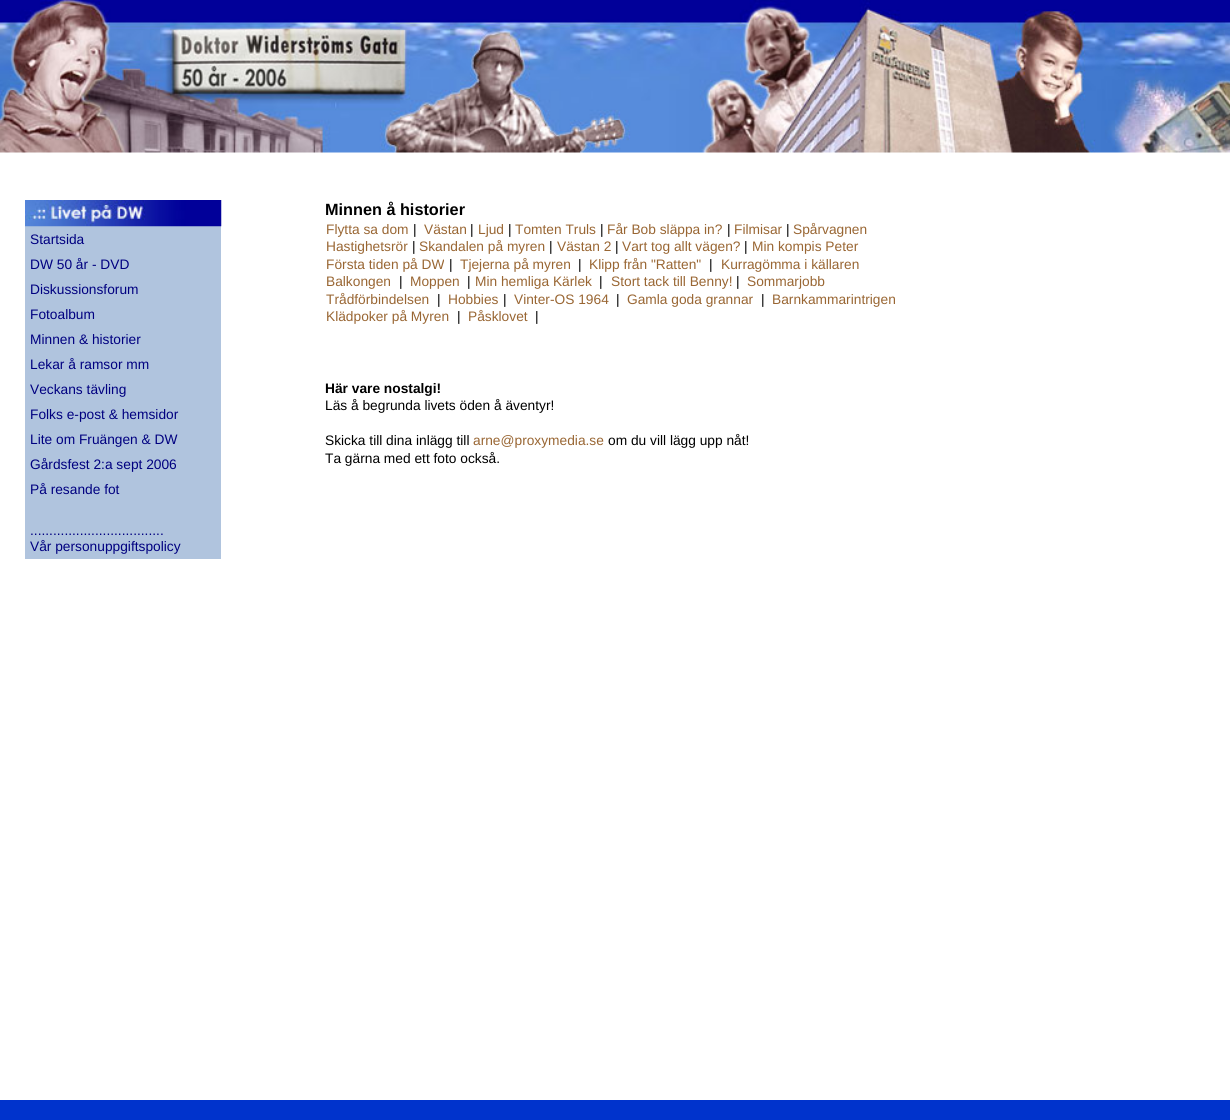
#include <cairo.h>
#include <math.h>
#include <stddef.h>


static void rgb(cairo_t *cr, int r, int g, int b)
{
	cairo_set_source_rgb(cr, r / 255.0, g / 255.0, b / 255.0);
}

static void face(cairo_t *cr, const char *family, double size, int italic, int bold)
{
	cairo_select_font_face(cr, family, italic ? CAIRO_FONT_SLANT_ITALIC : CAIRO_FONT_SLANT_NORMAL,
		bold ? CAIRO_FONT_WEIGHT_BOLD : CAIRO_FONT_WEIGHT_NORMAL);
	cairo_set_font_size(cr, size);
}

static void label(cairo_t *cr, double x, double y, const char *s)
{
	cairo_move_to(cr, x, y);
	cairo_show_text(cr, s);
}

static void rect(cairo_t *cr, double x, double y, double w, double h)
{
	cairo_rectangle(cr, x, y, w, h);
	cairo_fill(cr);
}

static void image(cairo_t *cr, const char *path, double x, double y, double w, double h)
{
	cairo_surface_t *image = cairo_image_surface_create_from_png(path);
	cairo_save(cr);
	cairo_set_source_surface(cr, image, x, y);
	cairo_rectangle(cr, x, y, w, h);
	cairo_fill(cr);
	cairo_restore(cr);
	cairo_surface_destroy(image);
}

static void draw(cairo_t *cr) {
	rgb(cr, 255, 255, 255);
	cairo_paint(cr);
	image(cr, "image0.png", 0, 0, 1015, 153);
	image(cr, "image1.png", 1015, 0, 215, 153);
	rgb(cr, 176, 196, 222);
	rect(cr, 25, 226, 196, 333);
	image(cr, "image2.png", 25, 200, 197, 27);
	face(cr, "Liberation Sans", 13.75, 0, 0);
	rgb(cr, 0, 0, 128);
	label(cr, 30, 244, "Startsida");
	label(cr, 30, 269, "DW 50 år - DVD");
	label(cr, 30, 294, "Diskussionsforum");
	label(cr, 30, 319, "Fotoalbum");
	label(cr, 30, 344, "Minnen & historier");
	label(cr, 30, 369, "Lekar å ramsor mm");
	label(cr, 30, 394, "Veckans tävling");
	label(cr, 30, 419, "Folks e-post & hemsidor");
	label(cr, 30, 444, "Lite om Fruängen & DW");
	label(cr, 30, 469, "Gårdsfest 2:a sept 2006");
	label(cr, 30, 494, "På resande fot");
	label(cr, 30, 535, "...................................");
	label(cr, 30, 551, "Vår personuppgiftspolicy");
	face(cr, "Liberation Sans", 16.25, 0, 1);
	rgb(cr, 0, 0, 0);
	label(cr, 325, 215, "Minnen å historier");
	face(cr, "Liberation Sans", 13.75, 0, 0);
	rgb(cr, 153, 102, 51);
	label(cr, 326, 234, "Flytta sa dom");
	rgb(cr, 0, 0, 0);
	label(cr, 413, 234, "|");
	rgb(cr, 153, 102, 51);
	label(cr, 424, 234, "Västan");
	rgb(cr, 0, 0, 0);
	label(cr, 470, 234, "|");
	rgb(cr, 153, 102, 51);
	label(cr, 478, 234, "Ljud");
	rgb(cr, 0, 0, 0);
	label(cr, 508, 234, "|");
	rgb(cr, 153, 102, 51);
	label(cr, 515, 234, "Tomten Truls");
	rgb(cr, 0, 0, 0);
	label(cr, 600, 234, "|");
	rgb(cr, 153, 102, 51);
	label(cr, 607, 234, "Får Bob släppa in?");
	rgb(cr, 0, 0, 0);
	label(cr, 727, 234, "|");
	rgb(cr, 153, 102, 51);
	label(cr, 734, 234, "Filmisar");
	rgb(cr, 0, 0, 0);
	label(cr, 786, 234, "|");
	rgb(cr, 153, 102, 51);
	label(cr, 793, 234, "Spårvagnen");
	label(cr, 326, 251, "Hastighetsrör");
	rgb(cr, 0, 0, 0);
	label(cr, 412, 251, "|");
	rgb(cr, 153, 102, 51);
	label(cr, 419, 251, "Skandalen på myren");
	rgb(cr, 0, 0, 0);
	label(cr, 549, 251, "|");
	rgb(cr, 153, 102, 51);
	label(cr, 557, 251, "Västan 2");
	rgb(cr, 0, 0, 0);
	label(cr, 615, 251, "|");
	rgb(cr, 153, 102, 51);
	label(cr, 622, 251, "Vart tog allt vägen?");
	rgb(cr, 0, 0, 0);
	label(cr, 744, 251, "|");
	rgb(cr, 153, 102, 51);
	label(cr, 752, 251, "Min kompis Peter");
	label(cr, 326, 269, "Första tiden på DW");
	rgb(cr, 0, 0, 0);
	label(cr, 449, 269, "|");
	rgb(cr, 153, 102, 51);
	label(cr, 460, 269, "Tjejerna på myren");
	rgb(cr, 0, 0, 0);
	label(cr, 578, 269, "|");
	rgb(cr, 153, 102, 51);
	label(cr, 589, 269, "Klipp från \"Ratten\"");
	rgb(cr, 0, 0, 0);
	label(cr, 709, 269, "|");
	rgb(cr, 153, 102, 51);
	label(cr, 721, 269, "Kurragömma i källaren");
	label(cr, 326, 286, "Balkongen");
	rgb(cr, 0, 0, 0);
	label(cr, 399, 286, "|");
	rgb(cr, 153, 102, 51);
	label(cr, 410, 286, "Moppen");
	rgb(cr, 0, 0, 0);
	label(cr, 467, 286, "|");
	rgb(cr, 153, 102, 51);
	label(cr, 475, 286, "Min hemliga Kärlek");
	rgb(cr, 0, 0, 0);
	label(cr, 599, 286, "|");
	rgb(cr, 153, 102, 51);
	label(cr, 611, 286, "Stort tack till Benny!");
	rgb(cr, 0, 0, 0);
	label(cr, 736, 286, "|");
	rgb(cr, 153, 102, 51);
	label(cr, 747, 286, "Sommarjobb");
	label(cr, 326, 304, "Trådförbindelsen");
	rgb(cr, 0, 0, 0);
	label(cr, 437, 304, "|");
	rgb(cr, 153, 102, 51);
	label(cr, 448, 304, "Hobbies");
	rgb(cr, 0, 0, 0);
	label(cr, 503, 304, "|");
	rgb(cr, 153, 102, 51);
	label(cr, 514, 304, "Vinter-OS 1964");
	rgb(cr, 0, 0, 0);
	label(cr, 616, 304, "|");
	rgb(cr, 153, 102, 51);
	label(cr, 627, 304, "Gamla goda grannar");
	rgb(cr, 0, 0, 0);
	label(cr, 761, 304, "|");
	rgb(cr, 153, 102, 51);
	label(cr, 772, 304, "Barnkammarintrigen");
	label(cr, 326, 321, "Klädpoker på Myren");
	rgb(cr, 0, 0, 0);
	label(cr, 457, 321, "|");
	rgb(cr, 153, 102, 51);
	label(cr, 468, 321, "Påsklovet");
	rgb(cr, 0, 0, 0);
	label(cr, 535, 321, "|");
	face(cr, "Liberation Sans", 13.75, 0, 1);
	label(cr, 325, 393, "Här vare nostalgi!");
	face(cr, "Liberation Sans", 13.75, 0, 0);
	label(cr, 325, 410, "Läs å begrunda livets öden å äventyr!");
	label(cr, 325, 445, "Skicka till dina inlägg till");
	rgb(cr, 153, 102, 51);
	label(cr, 473, 445, "arne@proxymedia.se");
	rgb(cr, 0, 0, 0);
	label(cr, 608, 445, "om du vill lägg upp nåt!");
	label(cr, 325, 463, "Ta gärna med ett foto också.");
	rgb(cr, 0, 51, 204);
	rect(cr, 0, 1100, 1230, 20);
}

int main(void) {
	cairo_surface_t *surface = cairo_image_surface_create(CAIRO_FORMAT_RGB24, 1230, 1120);
	cairo_t *cr = cairo_create(surface);
	cairo_font_options_t *options = cairo_font_options_create();
	cairo_font_options_set_hint_metrics(options, CAIRO_HINT_METRICS_OFF);
	cairo_font_options_set_hint_style(options, CAIRO_HINT_STYLE_NONE);
	cairo_set_font_options(cr, options);
	cairo_set_miter_limit(cr, 4);
	draw(cr);
	cairo_surface_write_to_png(surface, "render.png");
	cairo_font_options_destroy(options);
	cairo_destroy(cr);
	cairo_surface_destroy(surface);
	return 0;
}
